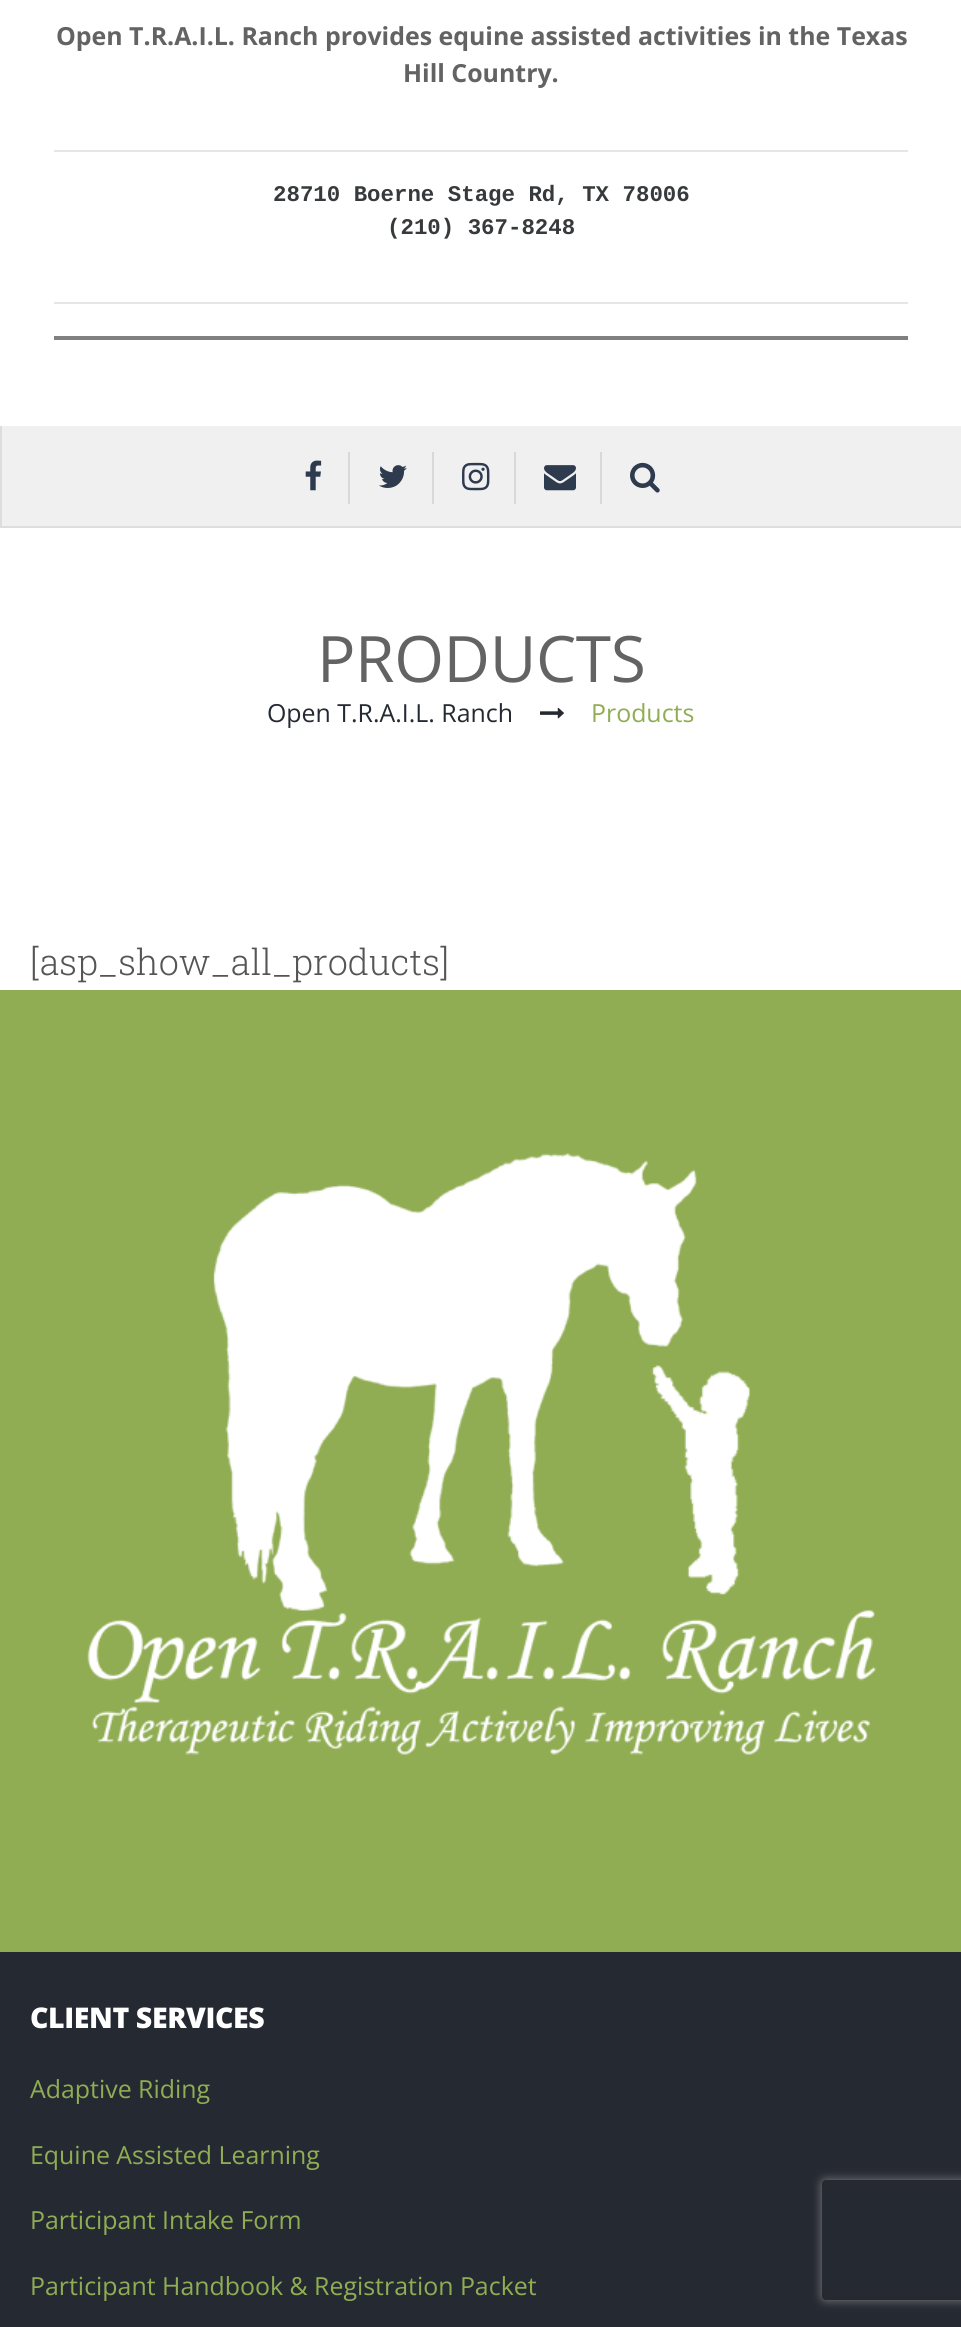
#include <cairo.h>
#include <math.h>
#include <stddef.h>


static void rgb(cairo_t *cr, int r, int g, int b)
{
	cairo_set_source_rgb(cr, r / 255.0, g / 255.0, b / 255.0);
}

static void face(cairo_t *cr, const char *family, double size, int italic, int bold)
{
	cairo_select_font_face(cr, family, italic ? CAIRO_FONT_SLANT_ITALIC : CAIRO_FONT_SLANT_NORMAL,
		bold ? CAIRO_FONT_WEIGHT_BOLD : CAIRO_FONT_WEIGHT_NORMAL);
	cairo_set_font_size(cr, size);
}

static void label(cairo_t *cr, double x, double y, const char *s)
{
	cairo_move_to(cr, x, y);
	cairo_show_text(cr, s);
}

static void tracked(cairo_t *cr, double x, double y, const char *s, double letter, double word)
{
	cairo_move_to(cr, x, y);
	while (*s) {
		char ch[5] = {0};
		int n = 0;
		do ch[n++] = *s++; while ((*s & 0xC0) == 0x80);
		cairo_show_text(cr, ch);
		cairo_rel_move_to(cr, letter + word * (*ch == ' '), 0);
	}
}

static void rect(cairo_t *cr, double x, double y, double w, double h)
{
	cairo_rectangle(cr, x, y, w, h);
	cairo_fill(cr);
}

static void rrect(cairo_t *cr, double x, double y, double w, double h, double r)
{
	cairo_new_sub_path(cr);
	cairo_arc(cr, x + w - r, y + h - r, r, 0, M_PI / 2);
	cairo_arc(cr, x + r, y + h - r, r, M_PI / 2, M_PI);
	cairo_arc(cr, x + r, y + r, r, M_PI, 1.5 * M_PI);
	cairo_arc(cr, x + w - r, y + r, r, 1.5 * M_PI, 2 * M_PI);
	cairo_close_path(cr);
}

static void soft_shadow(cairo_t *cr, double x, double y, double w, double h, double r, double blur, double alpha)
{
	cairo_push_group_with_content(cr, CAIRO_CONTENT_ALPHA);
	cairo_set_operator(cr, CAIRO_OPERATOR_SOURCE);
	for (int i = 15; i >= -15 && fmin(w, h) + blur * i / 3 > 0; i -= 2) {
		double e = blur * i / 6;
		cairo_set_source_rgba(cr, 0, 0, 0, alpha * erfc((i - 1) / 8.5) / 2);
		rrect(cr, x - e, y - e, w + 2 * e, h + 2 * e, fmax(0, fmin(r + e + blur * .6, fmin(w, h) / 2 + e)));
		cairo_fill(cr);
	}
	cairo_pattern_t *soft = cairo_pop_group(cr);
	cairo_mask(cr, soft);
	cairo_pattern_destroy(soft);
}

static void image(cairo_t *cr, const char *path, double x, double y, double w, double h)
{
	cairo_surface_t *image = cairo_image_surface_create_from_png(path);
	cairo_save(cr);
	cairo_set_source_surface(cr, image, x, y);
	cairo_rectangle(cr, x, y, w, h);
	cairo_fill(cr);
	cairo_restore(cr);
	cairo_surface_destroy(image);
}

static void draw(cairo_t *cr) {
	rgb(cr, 255, 255, 255);
	cairo_paint(cr);
	rgb(cr, 221, 221, 221);
	rect(cr, 0, 526, 961, 2);
	face(cr, "Open Sans", 24.9, 0, 1);
	rgb(cr, 99, 99, 99);
	label(cr, 56, 45, "Open T.R.A.I.L. Ranch provides equine assisted activities in the Texas");
	label(cr, 403, 82, "Hill Country.");
	rgb(cr, 230, 230, 230);
	rect(cr, 54, 150, 854, 2);
	face(cr, "Liberation Mono", 22.4, 0, 1);
	rgb(cr, 55, 58, 60);
	label(cr, 273, 201, "28710 Boerne Stage Rd, TX 78006");
	label(cr, 387, 234, "(210) 367-8248");
	rgb(cr, 230, 230, 230);
	rect(cr, 54, 302, 854, 2);
	rgb(cr, 128, 128, 128);
	rect(cr, 54, 336, 854, 4);
	rgb(cr, 240, 240, 240);
	rect(cr, 2, 426, 959, 100);
	rgb(cr, 221, 221, 221);
	rect(cr, 0, 426, 2, 100);
	image(cr, "image0.png", 305, 460, 17, 31);
	rgb(cr, 216, 216, 216);
	rect(cr, 348, 452, 2, 52);
	image(cr, "image1.png", 379, 465, 28, 23);
	rect(cr, 432, 452, 2, 52);
	image(cr, "image2.png", 462, 462, 28, 29);
	rect(cr, 514, 452, 2, 52);
	image(cr, "image3.png", 544, 465, 32, 26);
	rect(cr, 600, 452, 2, 52);
	image(cr, "image4.png", 630, 462, 30, 31);
	face(cr, "Open Sans", 64, 0, 0);
	rgb(cr, 99, 99, 99);
	tracked(cr, 317, 682, "PRODUCTS", -0.4, 0);
	face(cr, "Open Sans", 24.9, 0, 0);
	rgb(cr, 37, 41, 50);
	label(cr, 267, 722, "Open T.R.A.I.L. Ranch");
	image(cr, "image5.png", 540, 707, 24, 12);
	rgb(cr, 144, 173, 83);
	label(cr, 591, 722, "Products");
	face(cr, "Roboto Slab Light", 36, 0, 0);
	rgb(cr, 85, 85, 85);
	label(cr, 30, 975, "[asp_show_all_products]");
	rgb(cr, 37, 41, 50);
	rect(cr, 0, 1952, 961, 375);
	rgb(cr, 144, 173, 83);
	rect(cr, 0, 990, 961, 962);
	image(cr, "image6.png", 87, 1153, 789, 602);
	face(cr, "Open Sans ExtraBold", 28.5, 0, 0);
	rgb(cr, 255, 255, 255);
	tracked(cr, 30, 2028, "CLIENT SERVICES", -0.4, 0);
	face(cr, "Open Sans", 24.9, 0, 0);
	rgb(cr, 144, 173, 83);
	label(cr, 30, 2098, "Adaptive Riding");
	label(cr, 30, 2164, "Equine Assisted Learning");
	label(cr, 30, 2229, "Participant Intake Form");
	label(cr, 30, 2295, "Participant Handbook & Registration Packet");
	cairo_save(cr);
	cairo_set_fill_rule(cr, CAIRO_FILL_RULE_EVEN_ODD);
	cairo_new_path(cr);
	cairo_move_to(cr, 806, 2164);
	cairo_line_to(cr, 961, 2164);
	cairo_line_to(cr, 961, 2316);
	cairo_line_to(cr, 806, 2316);
	cairo_close_path(cr);
	cairo_move_to(cr, 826, 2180);
	cairo_line_to(cr, 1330, 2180);
	cairo_curve_to(cr, 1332, 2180, 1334, 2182, 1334, 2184);
	cairo_line_to(cr, 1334, 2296);
	cairo_curve_to(cr, 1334, 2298, 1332, 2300, 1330, 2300);
	cairo_line_to(cr, 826, 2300);
	cairo_curve_to(cr, 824, 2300, 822, 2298, 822, 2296);
	cairo_line_to(cr, 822, 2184);
	cairo_curve_to(cr, 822, 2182, 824, 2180, 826, 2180);
	cairo_close_path(cr);
	cairo_clip(cr);
	rgb(cr, 128, 128, 128);
	soft_shadow(cr, 822, 2180, 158, 120, 4, 5, 1);
	cairo_restore(cr);
}

int main(void) {
	cairo_surface_t *surface = cairo_image_surface_create(CAIRO_FORMAT_RGB24, 961, 2327);
	cairo_t *cr = cairo_create(surface);
	cairo_font_options_t *options = cairo_font_options_create();
	cairo_font_options_set_hint_metrics(options, CAIRO_HINT_METRICS_OFF);
	cairo_font_options_set_hint_style(options, CAIRO_HINT_STYLE_NONE);
	cairo_set_font_options(cr, options);
	cairo_set_miter_limit(cr, 4);
	draw(cr);
	cairo_surface_write_to_png(surface, "render.png");
	cairo_font_options_destroy(options);
	cairo_destroy(cr);
	cairo_surface_destroy(surface);
	return 0;
}
